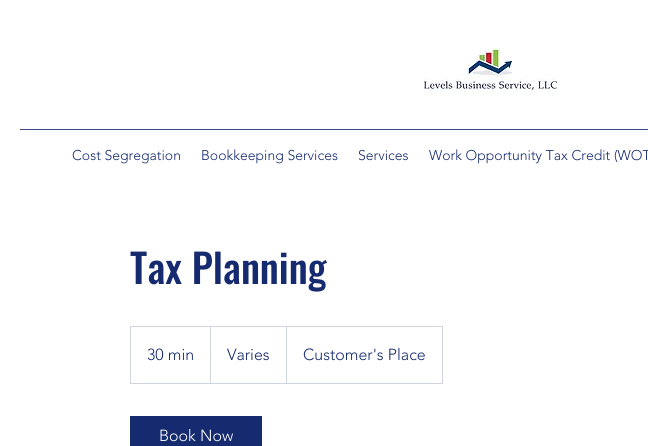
#include <cairo.h>
#include <math.h>
#include <stddef.h>


static void rgb(cairo_t *cr, int r, int g, int b)
{
	cairo_set_source_rgb(cr, r / 255.0, g / 255.0, b / 255.0);
}

static void face(cairo_t *cr, const char *family, double size, int italic, int bold)
{
	cairo_select_font_face(cr, family, italic ? CAIRO_FONT_SLANT_ITALIC : CAIRO_FONT_SLANT_NORMAL,
		bold ? CAIRO_FONT_WEIGHT_BOLD : CAIRO_FONT_WEIGHT_NORMAL);
	cairo_set_font_size(cr, size);
}

static void label(cairo_t *cr, double x, double y, const char *s)
{
	cairo_move_to(cr, x, y);
	cairo_show_text(cr, s);
}

static void rect(cairo_t *cr, double x, double y, double w, double h)
{
	cairo_rectangle(cr, x, y, w, h);
	cairo_fill(cr);
}

static void image(cairo_t *cr, const char *path, double x, double y, double w, double h)
{
	cairo_surface_t *image = cairo_image_surface_create_from_png(path);
	cairo_save(cr);
	cairo_set_source_surface(cr, image, x, y);
	cairo_rectangle(cr, x, y, w, h);
	cairo_fill(cr);
	cairo_restore(cr);
	cairo_surface_destroy(image);
}

static void draw(cairo_t *cr) {
	rgb(cr, 255, 255, 255);
	cairo_paint(cr);
	image(cr, "image0.png", 424, 46, 133, 48);
	rgb(cr, 57, 75, 133);
	rect(cr, 20, 129, 628, 1);
	face(cr, "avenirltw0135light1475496 Light", 14, 0, 0);
	rgb(cr, 22, 43, 111);
	label(cr, 72, 160, "Cost Segregation");
	label(cr, 201, 160, "Bookkeeping Services");
	label(cr, 358, 160, "Services");
	label(cr, 429, 160, "Work Opportunity Tax Credit (WOT");
	face(cr, "Oswald Medium", 40, 0, 0);
	label(cr, 130, 284, "Tax Planning");
	cairo_rectangle(cr, 130.5, 326.5, 312, 57);
	rgb(cr, 208, 213, 226);
	cairo_set_line_width(cr, 1);
	cairo_stroke(cr);
	face(cr, "avenirltw0135light1475496 Light", 16, 0, 0);
	rgb(cr, 22, 43, 111);
	label(cr, 147, 360, "30 min");
	rgb(cr, 208, 213, 226);
	cairo_new_path(cr);
	cairo_move_to(cr, 210, 383);
	cairo_line_to(cr, 210, 326);
	cairo_line_to(cr, 211, 327);
	cairo_line_to(cr, 211, 383);
	cairo_close_path(cr);
	cairo_fill(cr);
	rgb(cr, 22, 43, 111);
	label(cr, 227, 360, "Varies");
	rgb(cr, 208, 213, 226);
	cairo_new_path(cr);
	cairo_move_to(cr, 286, 383);
	cairo_line_to(cr, 286, 326);
	cairo_line_to(cr, 287, 327);
	cairo_line_to(cr, 287, 383);
	cairo_close_path(cr);
	cairo_fill(cr);
	rgb(cr, 22, 43, 111);
	label(cr, 303, 360, "Customer's Place");
	rect(cr, 130, 416, 132, 30);
	rgb(cr, 255, 255, 255);
	label(cr, 159, 441, "Book Now");
}

int main(void) {
	cairo_surface_t *surface = cairo_image_surface_create(CAIRO_FORMAT_RGB24, 648, 446);
	cairo_t *cr = cairo_create(surface);
	cairo_font_options_t *options = cairo_font_options_create();
	cairo_font_options_set_hint_metrics(options, CAIRO_HINT_METRICS_OFF);
	cairo_font_options_set_hint_style(options, CAIRO_HINT_STYLE_NONE);
	cairo_set_font_options(cr, options);
	cairo_set_miter_limit(cr, 4);
	draw(cr);
	cairo_surface_write_to_png(surface, "render.png");
	cairo_font_options_destroy(options);
	cairo_destroy(cr);
	cairo_surface_destroy(surface);
	return 0;
}
